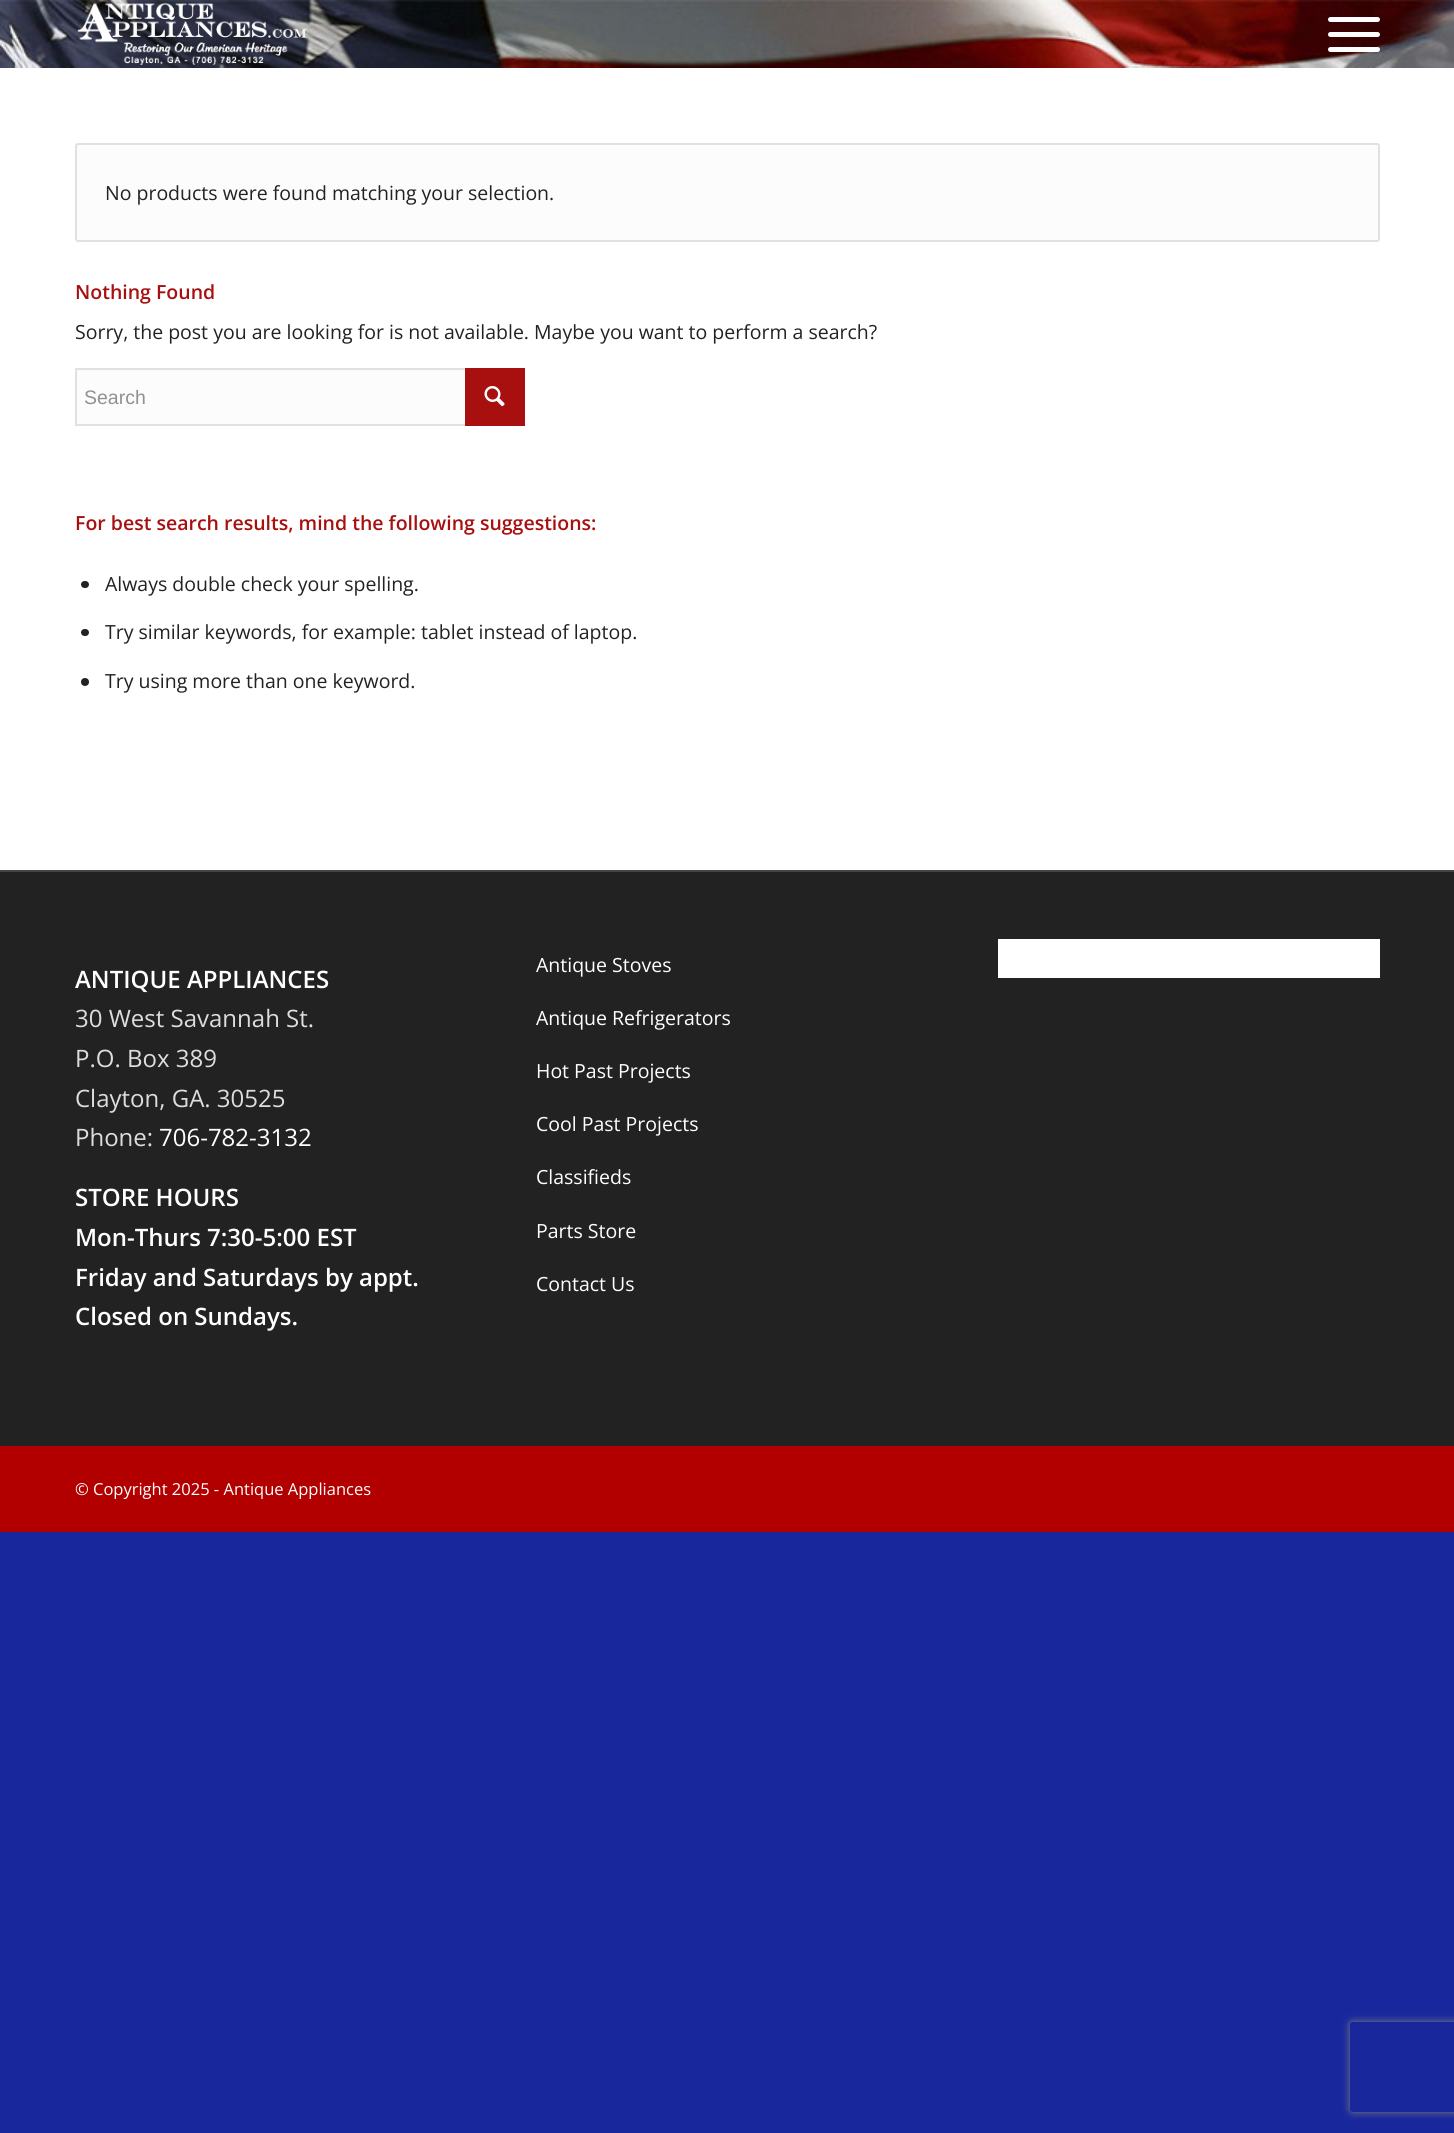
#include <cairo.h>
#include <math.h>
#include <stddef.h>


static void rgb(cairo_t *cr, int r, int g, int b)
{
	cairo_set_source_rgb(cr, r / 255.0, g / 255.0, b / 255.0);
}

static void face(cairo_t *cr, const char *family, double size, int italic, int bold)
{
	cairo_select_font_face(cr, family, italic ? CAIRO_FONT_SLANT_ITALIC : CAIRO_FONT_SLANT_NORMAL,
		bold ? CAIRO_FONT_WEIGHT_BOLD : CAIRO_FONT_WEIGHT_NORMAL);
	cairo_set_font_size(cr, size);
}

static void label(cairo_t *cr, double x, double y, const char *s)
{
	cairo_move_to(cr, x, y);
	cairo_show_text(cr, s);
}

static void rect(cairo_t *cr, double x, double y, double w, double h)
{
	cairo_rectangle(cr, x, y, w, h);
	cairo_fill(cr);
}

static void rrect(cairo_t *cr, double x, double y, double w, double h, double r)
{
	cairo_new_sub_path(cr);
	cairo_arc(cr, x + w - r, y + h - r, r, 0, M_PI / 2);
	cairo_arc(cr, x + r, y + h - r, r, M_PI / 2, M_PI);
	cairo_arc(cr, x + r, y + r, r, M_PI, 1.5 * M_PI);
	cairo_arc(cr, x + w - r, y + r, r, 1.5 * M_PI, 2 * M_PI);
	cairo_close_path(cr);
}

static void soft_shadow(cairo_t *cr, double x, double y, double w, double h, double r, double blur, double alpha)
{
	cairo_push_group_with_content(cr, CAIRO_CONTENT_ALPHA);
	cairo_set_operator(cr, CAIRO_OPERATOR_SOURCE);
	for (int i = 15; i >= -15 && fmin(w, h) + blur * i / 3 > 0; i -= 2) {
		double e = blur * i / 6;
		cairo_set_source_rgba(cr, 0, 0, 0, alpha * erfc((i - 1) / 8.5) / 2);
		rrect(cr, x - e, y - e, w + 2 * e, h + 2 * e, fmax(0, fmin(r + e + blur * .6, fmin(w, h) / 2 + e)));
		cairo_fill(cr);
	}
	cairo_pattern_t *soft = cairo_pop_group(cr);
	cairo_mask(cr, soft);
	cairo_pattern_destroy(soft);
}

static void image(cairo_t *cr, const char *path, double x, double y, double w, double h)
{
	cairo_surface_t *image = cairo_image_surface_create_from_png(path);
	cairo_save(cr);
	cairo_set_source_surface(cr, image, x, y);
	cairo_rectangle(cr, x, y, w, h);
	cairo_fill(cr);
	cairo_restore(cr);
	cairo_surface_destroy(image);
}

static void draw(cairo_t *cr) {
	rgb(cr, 24, 39, 155);
	cairo_paint(cr);
	image(cr, "image0.png", 0, 0, 1454, 68);
	image(cr, "image1.png", 77, 2, 230, 63);
	rgb(cr, 255, 255, 255);
	rrect(cr, 1328, 32, 52, 5, 2.5);
	cairo_fill(cr);
	rrect(cr, 1328, 17, 52, 5, 2.5);
	cairo_fill(cr);
	rrect(cr, 1328, 47, 52, 5, 2.5);
	cairo_fill(cr);
	rgb(cr, 178, 0, 0);
	rect(cr, 0, 1446, 1454, 86);
	rgb(cr, 255, 255, 255);
	rect(cr, 0, 68, 1454, 802);
	rgb(cr, 252, 252, 252);
	rrect(cr, 76, 144, 1303, 97, 2);
	cairo_fill_preserve(cr);
	rgb(cr, 225, 225, 225);
	cairo_stroke(cr);
	face(cr, "Open Sans", 19.5, 0, 0);
	rgb(cr, 34, 34, 34);
	label(cr, 105, 200, "No products were found matching your selection.");
	face(cr, "Open Sans SemiBold", 19.5, 0, 0);
	rgb(cr, 168, 16, 16);
	label(cr, 75, 299, "Nothing Found");
	face(cr, "Open Sans", 19.5, 0, 0);
	rgb(cr, 34, 34, 34);
	label(cr, 75, 339, "Sorry, the post you are looking for is not available. Maybe you want to perform a search?");
	rgb(cr, 252, 252, 252);
	rect(cr, 77, 370, 388, 54);
	cairo_rectangle(cr, 76, 369, 448, 56);
	rgb(cr, 225, 225, 225);
	cairo_stroke(cr);
	face(cr, "Liberation Sans", 19.5, 0, 0);
	rgb(cr, 145, 145, 145);
	label(cr, 84, 404, "Search");
	rgb(cr, 168, 16, 16);
	rect(cr, 465, 368, 60, 58);
	image(cr, "image2.png", 484, 386, 21, 21);
	face(cr, "Open Sans SemiBold", 19.5, 0, 0);
	label(cr, 75, 530, "For best search results, mind the following suggestions:");
	rgb(cr, 34, 34, 34);
	rrect(cr, 81, 581, 8, 7, 3.5);
	cairo_fill(cr);
	face(cr, "Open Sans", 19.5, 0, 0);
	label(cr, 105, 591, "Always double check your spelling.");
	rrect(cr, 81, 629, 8, 7, 3.5);
	cairo_fill(cr);
	label(cr, 105, 639, "Try similar keywords, for example: tablet instead of laptop.");
	cairo_new_path(cr);
	cairo_arc(cr, 85, 682, 4, 0, 2 * M_PI);
	cairo_fill(cr);
	label(cr, 105, 688, "Try using more than one keyword.");
	rect(cr, 0, 872, 1454, 574);
	rgb(cr, 68, 68, 68);
	rect(cr, 0, 870, 1454, 2);
	face(cr, "Open Sans SemiBold", 24, 0, 0);
	rgb(cr, 255, 255, 255);
	label(cr, 75, 988, "ANTIQUE APPLIANCES");
	face(cr, "Open Sans", 24, 0, 0);
	rgb(cr, 221, 221, 221);
	label(cr, 75, 1027, "30 West Savannah St.");
	label(cr, 75, 1067, "P.O. Box 389");
	label(cr, 75, 1107, "Clayton, GA. 30525");
	label(cr, 75, 1146, "Phone:");
	rgb(cr, 255, 255, 255);
	label(cr, 159, 1146, "706-782-3132");
	face(cr, "Open Sans SemiBold", 24, 0, 0);
	label(cr, 75, 1206, "STORE HOURS");
	label(cr, 75, 1246, "Mon-Thurs 7:30-5:00 EST");
	label(cr, 75, 1286, "Friday and Saturdays by appt.");
	label(cr, 75, 1325, "Closed on Sundays.");
	face(cr, "Open Sans", 19.5, 0, 0);
	label(cr, 536, 972, "Antique Stoves");
	label(cr, 536, 1025, "Antique Refrigerators");
	label(cr, 536, 1078, "Hot Past Projects");
	label(cr, 536, 1131, "Cool Past Projects");
	label(cr, 536, 1184, "Classifieds");
	label(cr, 536, 1238, "Parts Store");
	label(cr, 536, 1291, "Contact Us");
	rect(cr, 998, 939, 382, 39);
	face(cr, "Open Sans", 16.5, 0, 0);
	label(cr, 75, 1495, "© Copyright 2025 - Antique Appliances");
	cairo_save(cr);
	cairo_set_fill_rule(cr, CAIRO_FILL_RULE_EVEN_ODD);
	cairo_new_path(cr);
	cairo_move_to(cr, 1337, 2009);
	cairo_line_to(cr, 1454, 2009);
	cairo_line_to(cr, 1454, 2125);
	cairo_line_to(cr, 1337, 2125);
	cairo_close_path(cr);
	cairo_move_to(cr, 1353, 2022);
	cairo_line_to(cr, 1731, 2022);
	cairo_curve_to(cr, 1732.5, 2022, 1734, 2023.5, 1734, 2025);
	cairo_line_to(cr, 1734, 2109);
	cairo_curve_to(cr, 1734, 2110.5, 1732.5, 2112, 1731, 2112);
	cairo_line_to(cr, 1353, 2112);
	cairo_curve_to(cr, 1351.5, 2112, 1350, 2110.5, 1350, 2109);
	cairo_line_to(cr, 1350, 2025);
	cairo_curve_to(cr, 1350, 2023.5, 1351.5, 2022, 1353, 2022);
	cairo_close_path(cr);
	cairo_clip(cr);
	rgb(cr, 128, 128, 128);
	soft_shadow(cr, 1350, 2022, 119, 90, 3, 4, 1);
	cairo_restore(cr);
}

int main(void) {
	cairo_surface_t *surface = cairo_image_surface_create(CAIRO_FORMAT_RGB24, 1454, 2133);
	cairo_t *cr = cairo_create(surface);
	cairo_font_options_t *options = cairo_font_options_create();
	cairo_font_options_set_hint_metrics(options, CAIRO_HINT_METRICS_OFF);
	cairo_font_options_set_hint_style(options, CAIRO_HINT_STYLE_NONE);
	cairo_set_font_options(cr, options);
	cairo_set_miter_limit(cr, 4);
	draw(cr);
	cairo_surface_write_to_png(surface, "render.png");
	cairo_font_options_destroy(options);
	cairo_destroy(cr);
	cairo_surface_destroy(surface);
	return 0;
}
